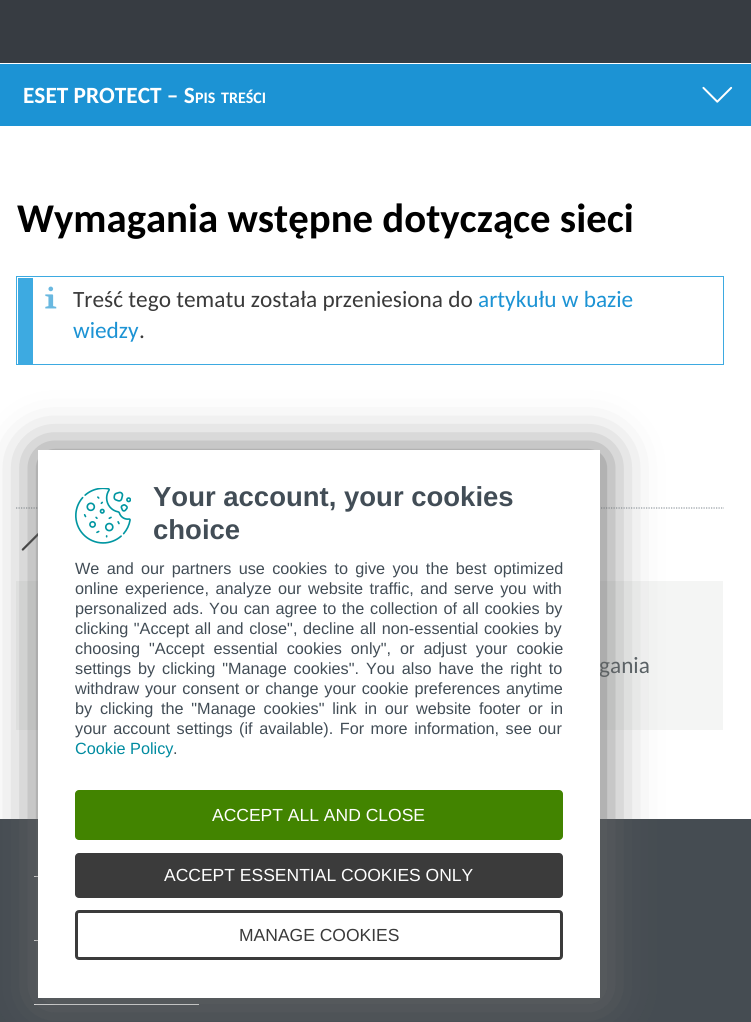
#include <cairo.h>
#include <math.h>
#include <stddef.h>


static void rgb(cairo_t *cr, int r, int g, int b)
{
	cairo_set_source_rgb(cr, r / 255.0, g / 255.0, b / 255.0);
}

static void face(cairo_t *cr, const char *family, double size, int italic, int bold)
{
	cairo_select_font_face(cr, family, italic ? CAIRO_FONT_SLANT_ITALIC : CAIRO_FONT_SLANT_NORMAL,
		bold ? CAIRO_FONT_WEIGHT_BOLD : CAIRO_FONT_WEIGHT_NORMAL);
	cairo_set_font_size(cr, size);
}

static void label(cairo_t *cr, double x, double y, const char *s)
{
	cairo_move_to(cr, x, y);
	cairo_show_text(cr, s);
}

static void tracked(cairo_t *cr, double x, double y, const char *s, double letter, double word)
{
	cairo_move_to(cr, x, y);
	while (*s) {
		char ch[5] = {0};
		int n = 0;
		do ch[n++] = *s++; while ((*s & 0xC0) == 0x80);
		cairo_show_text(cr, ch);
		cairo_rel_move_to(cr, letter + word * (*ch == ' '), 0);
	}
}

static void rect(cairo_t *cr, double x, double y, double w, double h)
{
	cairo_rectangle(cr, x, y, w, h);
	cairo_fill(cr);
}

static void rrect(cairo_t *cr, double x, double y, double w, double h, double r)
{
	cairo_new_sub_path(cr);
	cairo_arc(cr, x + w - r, y + h - r, r, 0, M_PI / 2);
	cairo_arc(cr, x + r, y + h - r, r, M_PI / 2, M_PI);
	cairo_arc(cr, x + r, y + r, r, M_PI, 1.5 * M_PI);
	cairo_arc(cr, x + w - r, y + r, r, 1.5 * M_PI, 2 * M_PI);
	cairo_close_path(cr);
}

static void soft_shadow(cairo_t *cr, double x, double y, double w, double h, double r, double blur, double alpha)
{
	cairo_push_group_with_content(cr, CAIRO_CONTENT_ALPHA);
	cairo_set_operator(cr, CAIRO_OPERATOR_SOURCE);
	for (int i = 15; i >= -15 && fmin(w, h) + blur * i / 3 > 0; i -= 2) {
		double e = blur * i / 6;
		cairo_set_source_rgba(cr, 0, 0, 0, alpha * erfc((i - 1) / 8.5) / 2);
		rrect(cr, x - e, y - e, w + 2 * e, h + 2 * e, fmax(0, fmin(r + e + blur * .6, fmin(w, h) / 2 + e)));
		cairo_fill(cr);
	}
	cairo_pattern_t *soft = cairo_pop_group(cr);
	cairo_mask(cr, soft);
	cairo_pattern_destroy(soft);
}

static void image(cairo_t *cr, const char *path, double x, double y, double w, double h)
{
	cairo_surface_t *image = cairo_image_surface_create_from_png(path);
	cairo_save(cr);
	cairo_set_source_surface(cr, image, x, y);
	cairo_rectangle(cr, x, y, w, h);
	cairo_fill(cr);
	cairo_restore(cr);
	cairo_surface_destroy(image);
}

static void draw(cairo_t *cr) {
	rgb(cr, 255, 255, 255);
	cairo_paint(cr);
	rgb(cr, 55, 60, 66);
	rect(cr, 0, 0, 751, 63);
	rgb(cr, 28, 147, 212);
	rect(cr, 0, 64, 751, 62);
	image(cr, "image0.png", 702, 86, 31, 17);
	face(cr, "Carlito", 23.3, 0, 1);
	rgb(cr, 255, 255, 255);
	label(cr, 23, 103, "ESET PROTECT – S");
	face(cr, "Carlito", 16, 0, 1);
	label(cr, 195, 103, "PIS");
	label(cr, 221, 103, "TREŚCI");
	face(cr, "Carlito", 40.8, 0, 1);
	rgb(cr, 0, 0, 0);
	label(cr, 17, 232, "Wymagania wstępne dotyczące sieci");
	cairo_rectangle(cr, 16.5, 276.5, 707, 88);
	rgb(cr, 61, 170, 225);
	cairo_set_line_width(cr, 1);
	cairo_stroke(cr);
	rect(cr, 18, 278, 15, 86);
	image(cr, "image1.png", 45, 286, 12, 23);
	face(cr, "Carlito", 23.3, 0, 0);
	rgb(cr, 58, 58, 58);
	label(cr, 73, 307, "Treść tego tematu została przeniesiona do");
	rgb(cr, 28, 147, 212);
	label(cr, 478, 307, "artykułu w bazie");
	label(cr, 73, 338, "wiedzy");
	rgb(cr, 58, 58, 58);
	label(cr, 139, 338, ".");
	cairo_new_path(cr);
	cairo_move_to(cr, 16, 508);
	cairo_line_to(cr, 724, 508);
	rgb(cr, 148, 156, 161);
	cairo_set_line_width(cr, 1.2);
	cairo_set_dash(cr, (double[]){1.25, 1.25}, 2, 0);
	cairo_stroke(cr);
	image(cr, "image2.png", 21, 533, 17, 18);
	rgb(cr, 244, 245, 244);
	rect(cr, 16, 581, 707, 149);
	rgb(cr, 89, 97, 101);
	label(cr, 599, 673, "gania");
	rgb(cr, 69, 76, 82);
	rect(cr, 0, 819, 751, 203);
	rgb(cr, 255, 255, 255);
	rect(cr, 34, 876, 4, 1);
	rect(cr, 34, 940, 4, 1);
	rect(cr, 34, 1004, 165, 1);
	rgb(cr, 102, 102, 102);
	soft_shadow(cr, 40, 453, 563, 547, 0, 25, 1);
	rgb(cr, 255, 255, 255);
	rect(cr, 38, 450, 562, 548);
	face(cr, "Liberation Sans", 27.5, 0, 1);
	rgb(cr, 66, 77, 86);
	label(cr, 153, 506, "Your account, your cookies");
	label(cr, 153, 539, "choice");
	face(cr, "Liberation Sans", 16.25, 0, 0);
	tracked(cr, 75, 574, "We and our partners use cookies to give you the best optimized", 0, 2.75);
	tracked(cr, 75, 594, "online experience, analyze our website traffic, and serve you with", 0, 2);
	tracked(cr, 75, 614, "personalized ads. You can agree to the collection of all cookies by", 0, 1.1);
	tracked(cr, 75, 634, "clicking \"Accept all and close\", decline all non-essential cookies by", 0, 1);
	tracked(cr, 75, 654, "choosing \"Accept essential cookies only\", or adjust your cookie", 0, 4.5);
	tracked(cr, 75, 674, "settings by clicking \"Manage cookies\". You also have the right to", 0, 2.4);
	tracked(cr, 75, 694, "withdraw your consent or change your cookie preferences anytime", 0, 1.25);
	tracked(cr, 75, 714, "by clicking the \"Manage cookies\" link in our website footer or in", 0, 3.25);
	tracked(cr, 75, 734, "your account settings (if available). For more information, see our", 0, 2);
	rgb(cr, 0, 139, 160);
	label(cr, 75, 754, "Cookie Policy");
	rgb(cr, 66, 77, 86);
	label(cr, 173, 754, ".");
	image(cr, "image3.png", 75, 488, 56, 56);
	rgb(cr, 66, 132, 0);
	rrect(cr, 75, 790, 488, 50, 4);
	cairo_fill(cr);
	face(cr, "Liberation Sans", 17.5, 0, 0);
	rgb(cr, 255, 255, 255);
	label(cr, 212, 821, "ACCEPT ALL AND CLOSE");
	rgb(cr, 59, 59, 59);
	rrect(cr, 75, 853, 488, 45, 4);
	cairo_fill(cr);
	rgb(cr, 255, 255, 255);
	label(cr, 164, 881, "ACCEPT ESSENTIAL COOKIES ONLY");
	rrect(cr, 76.5, 911.5, 485, 47, 2.5);
	rgb(cr, 59, 59, 59);
	cairo_set_line_width(cr, 3);
	cairo_set_dash(cr, NULL, 0, 0);
	cairo_stroke(cr);
	rgb(cr, 58, 58, 58);
	label(cr, 239, 941, "MANAGE COOKIES");
}

int main(void) {
	cairo_surface_t *surface = cairo_image_surface_create(CAIRO_FORMAT_RGB24, 751, 1022);
	cairo_t *cr = cairo_create(surface);
	cairo_font_options_t *options = cairo_font_options_create();
	cairo_font_options_set_hint_metrics(options, CAIRO_HINT_METRICS_OFF);
	cairo_font_options_set_hint_style(options, CAIRO_HINT_STYLE_NONE);
	cairo_set_font_options(cr, options);
	cairo_set_miter_limit(cr, 4);
	draw(cr);
	cairo_surface_write_to_png(surface, "render.png");
	cairo_font_options_destroy(options);
	cairo_destroy(cr);
	cairo_surface_destroy(surface);
	return 0;
}
